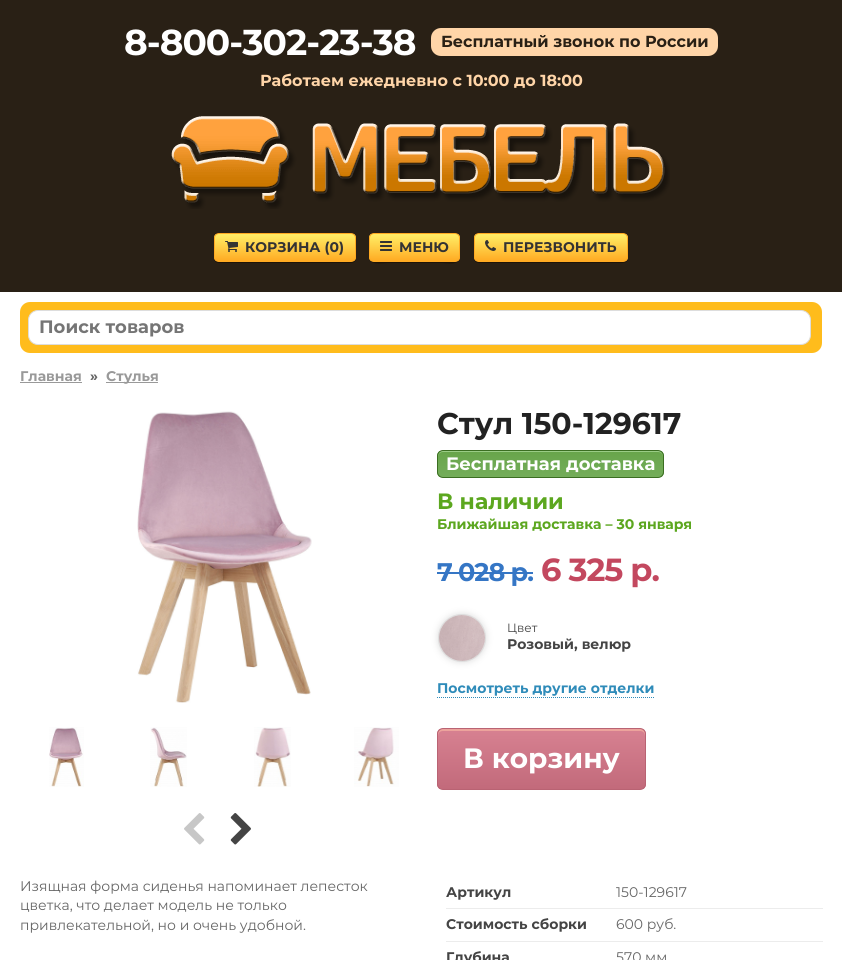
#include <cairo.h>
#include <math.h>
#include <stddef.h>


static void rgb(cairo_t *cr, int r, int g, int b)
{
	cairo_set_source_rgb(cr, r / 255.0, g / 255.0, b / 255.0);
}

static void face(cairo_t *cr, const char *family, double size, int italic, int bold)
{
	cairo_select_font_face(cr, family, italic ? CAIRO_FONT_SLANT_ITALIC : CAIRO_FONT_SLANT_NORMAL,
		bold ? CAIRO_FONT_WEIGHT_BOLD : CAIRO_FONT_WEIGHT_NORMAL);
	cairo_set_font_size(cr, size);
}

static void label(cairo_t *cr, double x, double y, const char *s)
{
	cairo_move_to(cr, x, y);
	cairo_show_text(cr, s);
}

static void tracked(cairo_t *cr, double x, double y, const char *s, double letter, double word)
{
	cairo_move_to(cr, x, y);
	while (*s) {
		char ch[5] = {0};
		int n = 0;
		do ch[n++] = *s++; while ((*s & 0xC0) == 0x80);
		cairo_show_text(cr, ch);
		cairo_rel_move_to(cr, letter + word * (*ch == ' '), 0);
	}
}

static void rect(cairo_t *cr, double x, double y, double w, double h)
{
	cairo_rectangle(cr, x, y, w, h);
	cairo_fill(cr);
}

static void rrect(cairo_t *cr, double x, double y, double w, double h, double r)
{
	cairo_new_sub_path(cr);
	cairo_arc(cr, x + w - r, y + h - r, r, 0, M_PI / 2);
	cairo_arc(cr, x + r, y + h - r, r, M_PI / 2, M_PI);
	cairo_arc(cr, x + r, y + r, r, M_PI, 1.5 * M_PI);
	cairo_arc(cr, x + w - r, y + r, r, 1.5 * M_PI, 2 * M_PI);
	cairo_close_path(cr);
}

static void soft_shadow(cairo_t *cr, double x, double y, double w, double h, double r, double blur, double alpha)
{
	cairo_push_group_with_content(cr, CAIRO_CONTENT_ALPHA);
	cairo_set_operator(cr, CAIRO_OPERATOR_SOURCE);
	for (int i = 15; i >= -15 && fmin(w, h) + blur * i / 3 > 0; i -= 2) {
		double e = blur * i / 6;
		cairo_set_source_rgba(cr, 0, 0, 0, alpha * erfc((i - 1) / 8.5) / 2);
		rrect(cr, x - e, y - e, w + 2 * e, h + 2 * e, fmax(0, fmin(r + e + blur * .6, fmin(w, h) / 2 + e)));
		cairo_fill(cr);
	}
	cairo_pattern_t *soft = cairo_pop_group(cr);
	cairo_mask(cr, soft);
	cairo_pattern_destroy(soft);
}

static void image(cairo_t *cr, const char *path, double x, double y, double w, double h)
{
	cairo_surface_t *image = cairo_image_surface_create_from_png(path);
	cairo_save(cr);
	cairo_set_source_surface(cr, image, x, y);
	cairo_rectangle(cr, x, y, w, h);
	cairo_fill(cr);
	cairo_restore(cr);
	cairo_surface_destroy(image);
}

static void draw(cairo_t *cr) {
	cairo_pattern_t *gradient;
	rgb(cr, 255, 255, 255);
	cairo_paint(cr);
	rgb(cr, 41, 32, 21);
	rect(cr, 0, 0, 842, 292);
	face(cr, "Montserrat", 36, 0, 1);
	rgb(cr, 255, 255, 255);
	tracked(cr, 124, 55, "8-800-302-23-38", -1, 0);
	rgb(cr, 255, 213, 168);
	rrect(cr, 431, 28, 287, 28, 10);
	cairo_fill(cr);
	face(cr, "Montserrat", 16, 0, 1);
	rgb(cr, 41, 32, 21);
	label(cr, 441, 47, "Бесплатный звонок по России");
	rgb(cr, 255, 213, 168);
	label(cr, 260, 86, "Работаем ежедневно с 10:00 до 18:00");
	image(cr, "image0.png", 171, 116, 499, 93);
	rgb(cr, 29, 20, 8);
	cairo_new_path(cr);
	cairo_move_to(cr, 214, 257);
	cairo_line_to(cr, 214, 258);
	cairo_curve_to(cr, 214, 261, 216, 263, 219, 263);
	cairo_line_to(cr, 351, 263);
	cairo_curve_to(cr, 354, 263, 356, 261, 356, 258);
	cairo_line_to(cr, 356, 257);
	cairo_curve_to(cr, 356, 260, 354, 262, 351, 262);
	cairo_line_to(cr, 219, 262);
	cairo_curve_to(cr, 216, 262, 214, 260, 214, 257);
	cairo_close_path(cr);
	cairo_fill(cr);
	cairo_save(cr);
	rrect(cr, 214, 233, 142, 29, 5);
	cairo_clip(cr);
	gradient = cairo_pattern_create_linear(285, 234, 285, 261);
	cairo_pattern_add_color_stop_rgba(gradient, 0.05, 1, 0.925, 0.392, 1);
	cairo_pattern_add_color_stop_rgba(gradient, 1, 1, 0.671, 0.137, 1);
	cairo_set_source(cr, gradient);
	cairo_pattern_destroy(gradient);
	rect(cr, 214, 234, 142, 27);
	cairo_restore(cr);
	rrect(cr, 214.5, 233.5, 141, 28, 4.5);
	rgb(cr, 255, 170, 34);
	cairo_set_line_width(cr, 1);
	cairo_stroke(cr);
	image(cr, "image1.png", 225, 241, 13, 11);
	face(cr, "Montserrat", 14, 0, 1);
	rgb(cr, 51, 51, 51);
	label(cr, 245, 252, "КОРЗИНА (0)");
	rgb(cr, 29, 20, 8);
	cairo_new_path(cr);
	cairo_move_to(cr, 369, 257);
	cairo_curve_to(cr, 369, 266, 382, 263, 388, 263);
	cairo_line_to(cr, 442, 263);
	cairo_curve_to(cr, 447, 263, 460, 266, 460, 257);
	cairo_curve_to(cr, 460, 260, 458, 262, 455, 262);
	cairo_line_to(cr, 374, 262);
	cairo_curve_to(cr, 371, 262, 369, 260, 369, 257);
	cairo_close_path(cr);
	cairo_fill(cr);
	cairo_save(cr);
	rrect(cr, 369, 233, 91, 29, 5);
	cairo_clip(cr);
	gradient = cairo_pattern_create_linear(415, 234, 415, 261);
	cairo_pattern_add_color_stop_rgba(gradient, 0.05, 1, 0.925, 0.392, 1);
	cairo_pattern_add_color_stop_rgba(gradient, 1, 1, 0.671, 0.137, 1);
	cairo_set_source(cr, gradient);
	cairo_pattern_destroy(gradient);
	rect(cr, 369, 234, 91, 27);
	cairo_restore(cr);
	rrect(cr, 369.5, 233.5, 90, 28, 4.5);
	rgb(cr, 255, 170, 34);
	cairo_stroke(cr);
	image(cr, "image2.png", 380, 241, 12, 10);
	rgb(cr, 51, 51, 51);
	label(cr, 399, 252, "МЕНЮ");
	rgb(cr, 29, 20, 8);
	cairo_new_path(cr);
	cairo_move_to(cr, 474, 257);
	cairo_line_to(cr, 474, 258);
	cairo_curve_to(cr, 474, 261, 476, 263, 479, 263);
	cairo_line_to(cr, 623, 263);
	cairo_curve_to(cr, 626, 263, 628, 261, 628, 258);
	cairo_line_to(cr, 628, 257);
	cairo_curve_to(cr, 628, 260, 626, 262, 623, 262);
	cairo_line_to(cr, 479, 262);
	cairo_curve_to(cr, 476, 262, 474, 260, 474, 257);
	cairo_close_path(cr);
	cairo_fill(cr);
	cairo_save(cr);
	rrect(cr, 474, 233, 154, 29, 5);
	cairo_clip(cr);
	gradient = cairo_pattern_create_linear(551, 234, 551, 261);
	cairo_pattern_add_color_stop_rgba(gradient, 0.05, 1, 0.925, 0.392, 1);
	cairo_pattern_add_color_stop_rgba(gradient, 1, 1, 0.671, 0.137, 1);
	cairo_set_source(cr, gradient);
	cairo_pattern_destroy(gradient);
	rect(cr, 474, 234, 154, 27);
	cairo_restore(cr);
	rrect(cr, 474.5, 233.5, 153, 28, 4.5);
	rgb(cr, 255, 170, 34);
	cairo_stroke(cr);
	image(cr, "image3.png", 485, 240, 11, 11);
	rgb(cr, 51, 51, 51);
	label(cr, 503, 252, "ПЕРЕЗВОНИТЬ");
	rgb(cr, 255, 188, 28);
	rrect(cr, 20, 302, 802, 51, 10);
	cairo_fill(cr);
	rgb(cr, 255, 255, 255);
	rrect(cr, 28.5, 310.5, 782, 34, 9.5);
	cairo_fill_preserve(cr);
	rgb(cr, 221, 221, 221);
	cairo_stroke(cr);
	face(cr, "Montserrat", 18, 0, 1);
	rgb(cr, 117, 117, 117);
	label(cr, 39, 333, "Поиск товаров");
	face(cr, "Montserrat", 14, 0, 1);
	rgb(cr, 153, 153, 153);
	label(cr, 20, 381, "Главная");
	rect(cr, 20, 382, 62, 1);
	rgb(cr, 102, 102, 102);
	label(cr, 90, 381, "»");
	rgb(cr, 153, 153, 153);
	rect(cr, 106, 382, 52, 1);
	label(cr, 106, 381, "Стулья");
	image(cr, "image4.png", 137, 411, 175, 292);
	image(cr, "image5.png", 49, 727, 35, 60);
	image(cr, "image6.png", 150, 727, 37, 60);
	image(cr, "image7.png", 254, 727, 37, 60);
	image(cr, "image8.png", 354, 727, 45, 60);
	image(cr, "image9.png", 184, 813, 21, 32);
	image(cr, "image10.png", 230, 813, 21, 32);
	face(cr, "Montserrat", 30, 0, 1);
	rgb(cr, 34, 34, 34);
	label(cr, 437, 434, "Стул 150-129617");
	cairo_save(cr);
	rrect(cr, 437, 450, 227, 28, 6);
	cairo_clip(cr);
	gradient = cairo_pattern_create_linear(551, 451, 551, 477);
	cairo_pattern_add_color_stop_rgba(gradient, 0.05, 0.408, 0.647, 0.294, 1);
	cairo_pattern_add_color_stop_rgba(gradient, 1, 0.455, 0.678, 0.353, 1);
	cairo_set_source(cr, gradient);
	cairo_pattern_destroy(gradient);
	rect(cr, 437, 451, 227, 26);
	cairo_restore(cr);
	rgb(cr, 154, 204, 133);
	cairo_new_path(cr);
	cairo_move_to(cr, 443, 452);
	cairo_line_to(cr, 658, 452);
	cairo_curve_to(cr, 661, 452, 663, 454, 663, 457);
	cairo_line_to(cr, 663, 456);
	cairo_curve_to(cr, 663, 453, 661, 451, 658, 451);
	cairo_line_to(cr, 443, 451);
	cairo_curve_to(cr, 440, 451, 438, 453, 438, 456);
	cairo_line_to(cr, 438, 457);
	cairo_curve_to(cr, 438, 454, 440, 452, 443, 452);
	cairo_close_path(cr);
	cairo_fill(cr);
	rrect(cr, 437.5, 450.5, 226, 27, 5.5);
	rgb(cr, 59, 110, 34);
	cairo_stroke(cr);
	face(cr, "Montserrat", 18, 0, 1);
	rgb(cr, 255, 255, 255);
	label(cr, 446, 470, "Бесплатная доставка");
	image(cr, "image11.png", 438, 493, 253, 39);
	face(cr, "Montserrat", 25.5, 0, 1);
	rgb(cr, 53, 118, 197);
	tracked(cr, 437, 581, "7 028 р.", -1, 0);
	rect(cr, 437, 572, 96, 2);
	face(cr, "Montserrat", 32, 0, 1);
	rgb(cr, 195, 72, 95);
	tracked(cr, 541, 581, "6 325 р.", -1, 0);
	rgb(cr, 221, 221, 221);
	soft_shadow(cr, 438, 614, 48, 48, 24, 3.5, 1);
	cairo_arc(cr, 462, 638, 23.5, 0, 2 * M_PI);
	rgb(cr, 221, 221, 221);
	cairo_stroke(cr);
	image(cr, "image12.png", 439, 615, 46, 46);
	face(cr, "Montserrat", 12, 0, 0);
	rgb(cr, 68, 68, 68);
	label(cr, 507, 632, "Цвет");
	face(cr, "Montserrat", 14, 0, 1);
	label(cr, 507, 649, "Розовый, велюр");
	rgb(cr, 46, 139, 185);
	label(cr, 437, 693, "Посмотреть другие отделки");
	cairo_new_path(cr);
	cairo_move_to(cr, 437, 697.5);
	cairo_line_to(cr, 654, 697.5);
	cairo_set_dash(cr, (double[]){1, 1}, 2, 0);
	cairo_stroke(cr);
	cairo_save(cr);
	rrect(cr, 437, 728, 209, 62, 6);
	cairo_clip(cr);
	gradient = cairo_pattern_create_linear(542, 729, 542, 789);
	cairo_pattern_add_color_stop_rgba(gradient, 0.05, 0.839, 0.502, 0.565, 1);
	cairo_pattern_add_color_stop_rgba(gradient, 1, 0.761, 0.416, 0.482, 1);
	cairo_set_source(cr, gradient);
	cairo_pattern_destroy(gradient);
	rect(cr, 437, 729, 209, 60);
	cairo_restore(cr);
	rgb(cr, 236, 163, 156);
	cairo_new_path(cr);
	cairo_move_to(cr, 443, 731);
	cairo_line_to(cr, 640, 731);
	cairo_curve_to(cr, 643, 731, 645, 733, 645, 736);
	cairo_line_to(cr, 645, 734);
	cairo_curve_to(cr, 645, 731, 643, 729, 640, 729);
	cairo_line_to(cr, 443, 729);
	cairo_curve_to(cr, 440, 729, 438, 731, 438, 734);
	cairo_line_to(cr, 438, 736);
	cairo_curve_to(cr, 438, 733, 440, 731, 443, 731);
	cairo_close_path(cr);
	cairo_fill(cr);
	rrect(cr, 437.5, 728.5, 208, 61, 5.5);
	rgb(cr, 185, 99, 115);
	cairo_set_dash(cr, NULL, 0, 0);
	cairo_stroke(cr);
	face(cr, "Montserrat", 28, 0, 1);
	rgb(cr, 255, 255, 255);
	label(cr, 463, 768, "В корзину");
	face(cr, "Montserrat", 14, 0, 0);
	rgb(cr, 102, 102, 102);
	label(cr, 20, 891, "Изящная форма сиденья напоминает лепесток");
	label(cr, 20, 910, "цветка, что делает модель не только");
	label(cr, 20, 930, "привлекательной, но и очень удобной.");
	face(cr, "Montserrat", 14, 0, 1);
	rgb(cr, 68, 68, 68);
	label(cr, 446, 897, "Артикул");
	rgb(cr, 236, 236, 236);
	rect(cr, 446, 908, 377, 1);
	face(cr, "Montserrat", 14, 0, 0);
	rgb(cr, 102, 102, 102);
	label(cr, 616, 897, "150-129617");
	face(cr, "Montserrat", 14, 0, 1);
	rgb(cr, 68, 68, 68);
	label(cr, 446, 929, "Стоимость сборки");
	rgb(cr, 236, 236, 236);
	rect(cr, 446, 941, 377, 1);
	face(cr, "Montserrat", 14, 0, 0);
	rgb(cr, 102, 102, 102);
	label(cr, 616, 929, "600 руб.");
	face(cr, "Montserrat", 14, 0, 1);
	rgb(cr, 68, 68, 68);
	label(cr, 446, 962, "Глубина");
	face(cr, "Montserrat", 14, 0, 0);
	rgb(cr, 102, 102, 102);
	label(cr, 616, 962, "570 мм");
}

int main(void) {
	cairo_surface_t *surface = cairo_image_surface_create(CAIRO_FORMAT_RGB24, 842, 960);
	cairo_t *cr = cairo_create(surface);
	cairo_font_options_t *options = cairo_font_options_create();
	cairo_font_options_set_hint_metrics(options, CAIRO_HINT_METRICS_OFF);
	cairo_font_options_set_hint_style(options, CAIRO_HINT_STYLE_NONE);
	cairo_set_font_options(cr, options);
	cairo_set_miter_limit(cr, 4);
	draw(cr);
	cairo_surface_write_to_png(surface, "render.png");
	cairo_font_options_destroy(options);
	cairo_destroy(cr);
	cairo_surface_destroy(surface);
	return 0;
}
